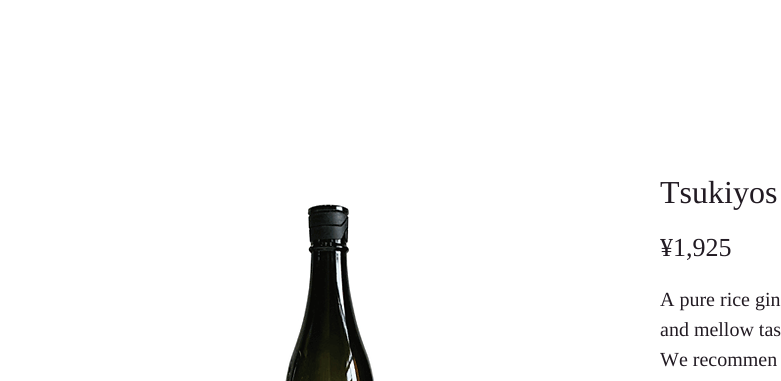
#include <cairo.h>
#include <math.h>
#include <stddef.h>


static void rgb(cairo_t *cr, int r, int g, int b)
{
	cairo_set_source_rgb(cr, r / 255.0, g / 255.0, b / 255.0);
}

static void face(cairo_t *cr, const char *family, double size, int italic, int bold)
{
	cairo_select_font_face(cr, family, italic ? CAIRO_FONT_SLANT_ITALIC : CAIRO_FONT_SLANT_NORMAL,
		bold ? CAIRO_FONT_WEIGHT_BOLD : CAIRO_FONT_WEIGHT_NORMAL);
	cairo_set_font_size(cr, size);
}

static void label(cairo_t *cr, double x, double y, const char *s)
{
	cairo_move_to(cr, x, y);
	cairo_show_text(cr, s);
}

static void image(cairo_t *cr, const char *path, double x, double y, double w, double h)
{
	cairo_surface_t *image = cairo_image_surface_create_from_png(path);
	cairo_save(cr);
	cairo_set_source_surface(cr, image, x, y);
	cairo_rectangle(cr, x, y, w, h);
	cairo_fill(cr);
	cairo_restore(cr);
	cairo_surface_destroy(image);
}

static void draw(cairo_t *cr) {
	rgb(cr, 255, 255, 255);
	cairo_paint(cr);
	image(cr, "image0.png", 285, 204, 89, 177);
	face(cr, "Liberation Serif", 32, 0, 0);
	rgb(cr, 34, 27, 35);
	label(cr, 660, 203, "Tsukiyos");
	face(cr, "Liberation Serif", 26, 0, 0);
	label(cr, 660, 256, "¥1,925");
	face(cr, "Liberation Serif", 20, 0, 0);
	label(cr, 660, 306, "A pure rice gin");
	label(cr, 660, 336, "and mellow tas");
	label(cr, 660, 366, "We recommen");
}

int main(void) {
	cairo_surface_t *surface = cairo_image_surface_create(CAIRO_FORMAT_RGB24, 781, 381);
	cairo_t *cr = cairo_create(surface);
	cairo_font_options_t *options = cairo_font_options_create();
	cairo_font_options_set_hint_metrics(options, CAIRO_HINT_METRICS_OFF);
	cairo_font_options_set_hint_style(options, CAIRO_HINT_STYLE_NONE);
	cairo_set_font_options(cr, options);
	cairo_set_miter_limit(cr, 4);
	draw(cr);
	cairo_surface_write_to_png(surface, "render.png");
	cairo_font_options_destroy(options);
	cairo_destroy(cr);
	cairo_surface_destroy(surface);
	return 0;
}
